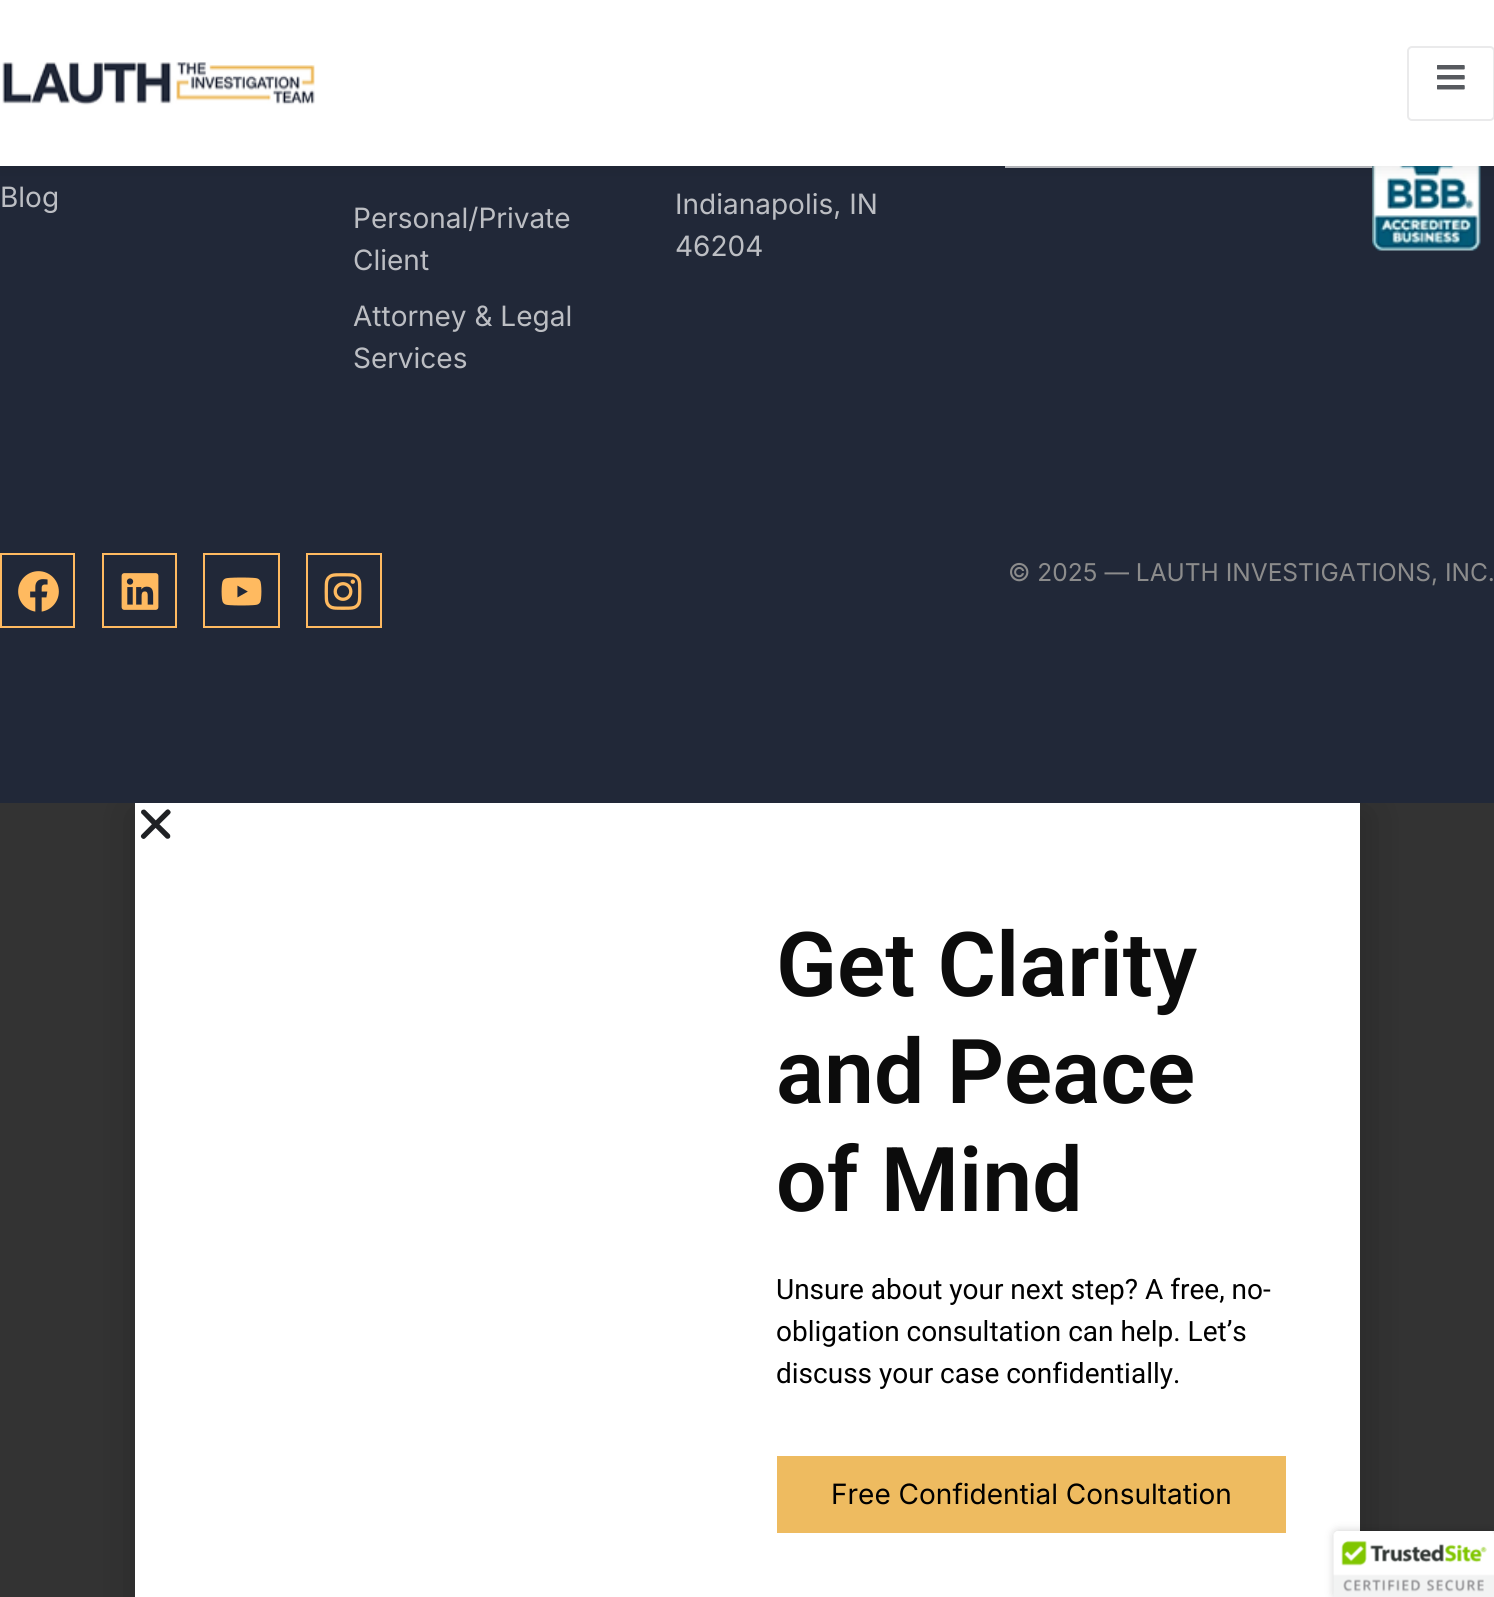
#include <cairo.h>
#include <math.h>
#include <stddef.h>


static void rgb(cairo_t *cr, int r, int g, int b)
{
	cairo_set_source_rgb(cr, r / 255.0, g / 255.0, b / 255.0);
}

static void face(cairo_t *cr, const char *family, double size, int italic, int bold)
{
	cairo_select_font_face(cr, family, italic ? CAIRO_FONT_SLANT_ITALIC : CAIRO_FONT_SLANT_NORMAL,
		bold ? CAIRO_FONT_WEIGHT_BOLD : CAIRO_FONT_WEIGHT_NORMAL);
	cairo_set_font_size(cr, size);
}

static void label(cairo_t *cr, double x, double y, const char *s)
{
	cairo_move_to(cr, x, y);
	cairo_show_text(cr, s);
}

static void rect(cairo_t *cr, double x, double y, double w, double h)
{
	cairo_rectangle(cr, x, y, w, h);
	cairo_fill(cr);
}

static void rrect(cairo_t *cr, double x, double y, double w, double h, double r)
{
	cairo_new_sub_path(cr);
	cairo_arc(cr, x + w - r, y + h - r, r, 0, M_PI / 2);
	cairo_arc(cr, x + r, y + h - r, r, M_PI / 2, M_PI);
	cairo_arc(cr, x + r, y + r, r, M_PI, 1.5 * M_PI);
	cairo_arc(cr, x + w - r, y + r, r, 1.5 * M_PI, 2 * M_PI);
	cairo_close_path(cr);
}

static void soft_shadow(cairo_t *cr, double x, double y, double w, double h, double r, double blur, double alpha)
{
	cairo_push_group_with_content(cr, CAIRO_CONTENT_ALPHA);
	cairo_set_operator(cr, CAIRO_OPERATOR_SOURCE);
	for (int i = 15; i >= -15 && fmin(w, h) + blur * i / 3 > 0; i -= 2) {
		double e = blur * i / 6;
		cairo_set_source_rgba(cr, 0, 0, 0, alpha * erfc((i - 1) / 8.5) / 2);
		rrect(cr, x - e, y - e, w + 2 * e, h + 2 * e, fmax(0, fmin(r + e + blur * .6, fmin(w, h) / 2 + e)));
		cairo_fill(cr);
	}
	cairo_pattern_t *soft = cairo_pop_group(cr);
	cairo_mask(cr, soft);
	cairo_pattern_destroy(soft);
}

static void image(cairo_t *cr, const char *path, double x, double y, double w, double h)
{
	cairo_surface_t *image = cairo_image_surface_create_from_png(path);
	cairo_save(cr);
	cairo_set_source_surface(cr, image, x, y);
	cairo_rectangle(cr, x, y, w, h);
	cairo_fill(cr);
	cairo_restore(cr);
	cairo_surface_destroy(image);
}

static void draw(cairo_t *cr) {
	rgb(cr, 51, 51, 51);
	cairo_paint(cr);
	rgb(cr, 0, 0, 0);
	soft_shadow(cr, 133, 812, 1236, 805, 0, 20, 0.2);
	rgb(cr, 33, 40, 56);
	rect(cr, 0, 166, 1494, 637);
	rgb(cr, 188, 190, 195);
	rect(cr, 1005, 166, 371, 2);
	image(cr, "image2.png", 1372, 166, 109, 85);
	rgb(cr, 0, 0, 0);
	soft_shadow(cr, 0, 0, 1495, 166, 0, 9, 0.12);
	rgb(cr, 255, 255, 255);
	rect(cr, 0, 0, 1494, 166);
	image(cr, "image0.png", 2, 62, 313, 43);
	rrect(cr, 1408, 47, 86, 73, 4);
	rgb(cr, 234, 234, 235);
	cairo_stroke(cr);
	image(cr, "image1.png", 1437, 65, 28, 25);
	face(cr, "Inter", 28, 0, 0);
	rgb(cr, 188, 190, 195);
	label(cr, 0, 207, "Blog");
	label(cr, 353, 228, "Personal/Private");
	label(cr, 353, 270, "Client");
	label(cr, 353, 326, "Attorney & Legal");
	label(cr, 353, 368, "Services");
	label(cr, 675, 214, "Indianapolis, IN");
	label(cr, 675, 256, "46204");
	cairo_rectangle(cr, 1, 554, 73, 73);
	rgb(cr, 255, 186, 96);
	cairo_stroke(cr);
	image(cr, "image3.png", 18, 571, 41, 41);
	cairo_rectangle(cr, 103, 554, 73, 73);
	cairo_stroke(cr);
	image(cr, "image4.png", 121, 573, 38, 37);
	cairo_rectangle(cr, 204, 554, 75, 73);
	cairo_stroke(cr);
	image(cr, "image5.png", 221, 577, 41, 29);
	cairo_rectangle(cr, 307, 554, 74, 73);
	cairo_stroke(cr);
	image(cr, "image6.png", 324, 573, 38, 37);
	face(cr, "Inter", 24.5, 0, 0);
	rgb(cr, 140, 140, 140);
	label(cr, 1008, 581, "© 2025 — LAUTH INVESTIGATIONS, INC.");
	rgb(cr, 255, 255, 255);
	rect(cr, 135, 803, 1225, 794);
	image(cr, "image7.png", 140, 809, 31, 30);
	face(cr, "Roboto SemiBold", 89.5, 0, 0);
	rgb(cr, 12, 12, 12);
	label(cr, 776, 996, "Get Clarity");
	label(cr, 776, 1103, "and Peace");
	label(cr, 776, 1211, "of Mind");
	face(cr, "Roboto", 28, 0, 0);
	rgb(cr, 0, 0, 0);
	label(cr, 776, 1299, "Unsure about your next step? A free, no-");
	label(cr, 776, 1341, "obligation consultation can help. Let’s");
	label(cr, 776, 1383, "discuss your case confidentially.");
	rgb(cr, 238, 187, 96);
	rect(cr, 777, 1456, 509, 77);
	face(cr, "Inter", 28, 0, 0);
	rgb(cr, 0, 0, 0);
	label(cr, 831, 1504, "Free Confidential Consultation");
	rgb(cr, 0, 0, 0);
	soft_shadow(cr, 1334, 1531, 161, 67, 4, 4.5, 0.2);
	rgb(cr, 255, 255, 255);
	cairo_new_path(cr);
	cairo_move_to(cr, 1338, 1531);
	cairo_line_to(cr, 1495, 1531);
	cairo_line_to(cr, 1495, 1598);
	cairo_line_to(cr, 1334, 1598);
	cairo_line_to(cr, 1334, 1535);
	cairo_curve_to(cr, 1334, 1533, 1336, 1531, 1338, 1531);
	cairo_close_path(cr);
	cairo_fill(cr);
	image(cr, "image8.png", 1333, 1531, 161, 66);
}

int main(void) {
	cairo_surface_t *surface = cairo_image_surface_create(CAIRO_FORMAT_RGB24, 1494, 1597);
	cairo_t *cr = cairo_create(surface);
	cairo_font_options_t *options = cairo_font_options_create();
	cairo_font_options_set_hint_metrics(options, CAIRO_HINT_METRICS_OFF);
	cairo_font_options_set_hint_style(options, CAIRO_HINT_STYLE_NONE);
	cairo_set_font_options(cr, options);
	cairo_set_miter_limit(cr, 4);
	draw(cr);
	cairo_surface_write_to_png(surface, "render.png");
	cairo_font_options_destroy(options);
	cairo_destroy(cr);
	cairo_surface_destroy(surface);
	return 0;
}
